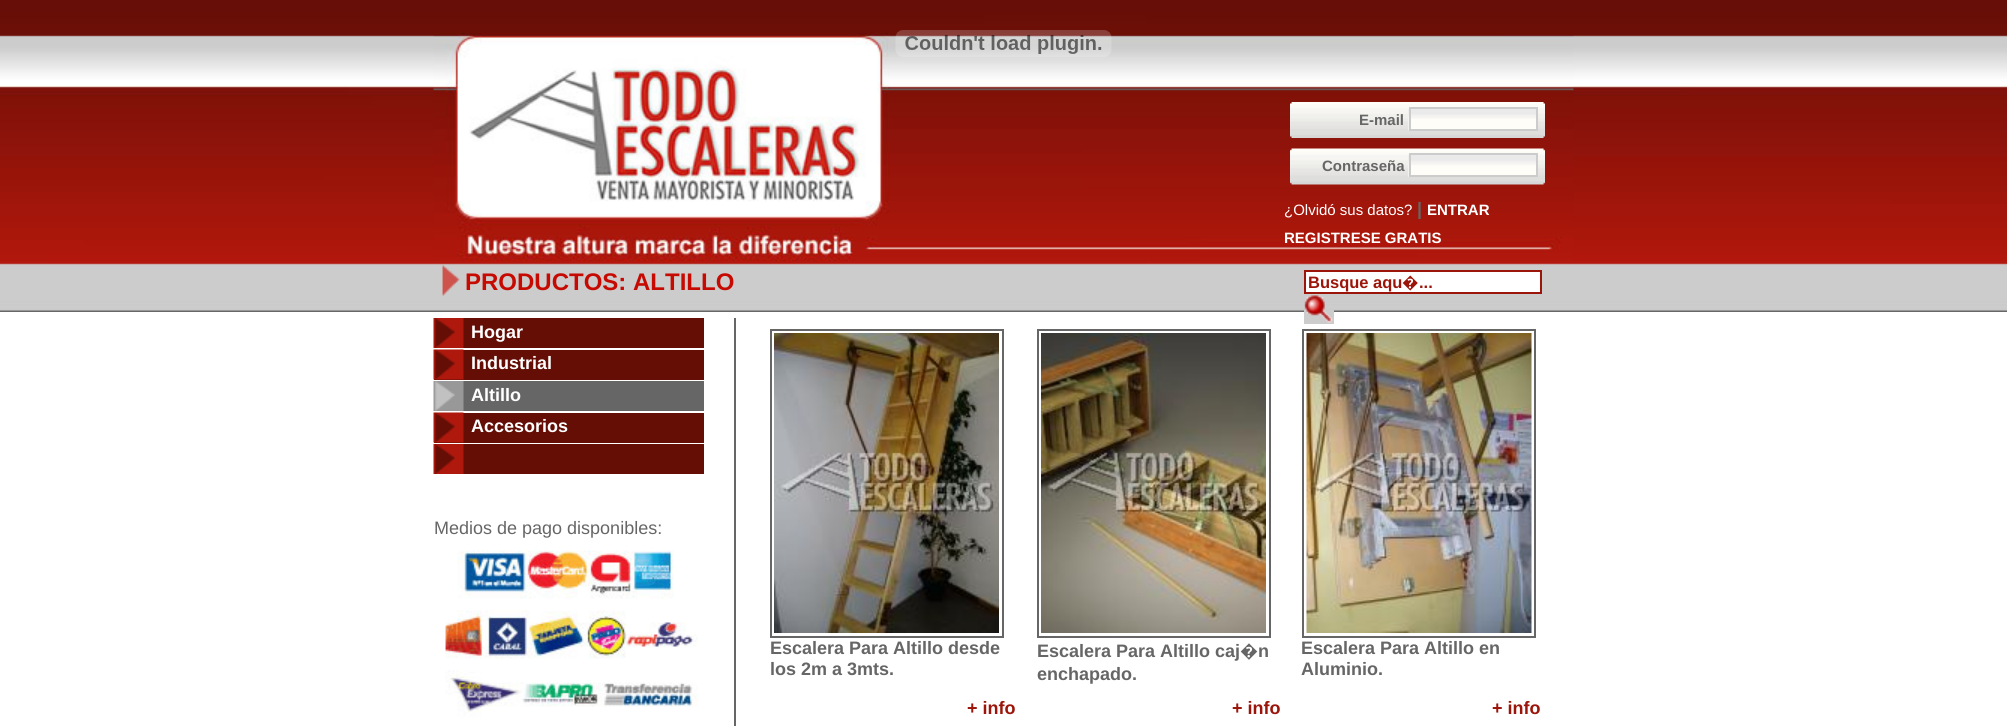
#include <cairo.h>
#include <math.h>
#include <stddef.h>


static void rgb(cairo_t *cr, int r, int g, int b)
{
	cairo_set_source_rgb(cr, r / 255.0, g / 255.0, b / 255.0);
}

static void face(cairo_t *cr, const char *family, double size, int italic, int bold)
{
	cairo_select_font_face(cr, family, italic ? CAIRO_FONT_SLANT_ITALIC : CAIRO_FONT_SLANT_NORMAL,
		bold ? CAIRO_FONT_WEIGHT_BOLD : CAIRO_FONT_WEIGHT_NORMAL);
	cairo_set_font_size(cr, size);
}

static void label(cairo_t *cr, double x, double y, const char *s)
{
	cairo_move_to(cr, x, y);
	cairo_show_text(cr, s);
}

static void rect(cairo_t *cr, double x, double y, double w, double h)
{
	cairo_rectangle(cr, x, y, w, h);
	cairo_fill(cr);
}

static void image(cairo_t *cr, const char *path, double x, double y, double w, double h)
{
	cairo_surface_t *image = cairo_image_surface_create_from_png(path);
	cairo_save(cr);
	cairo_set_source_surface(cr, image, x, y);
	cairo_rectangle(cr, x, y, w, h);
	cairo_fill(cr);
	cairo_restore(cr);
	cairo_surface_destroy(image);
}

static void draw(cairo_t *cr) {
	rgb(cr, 255, 255, 255);
	cairo_paint(cr);
	image(cr, "image0.png", 0, 0, 2007, 312);
	image(cr, "image1.png", 433, 33, 1141, 228);
	image(cr, "image2.png", 895, 30, 217, 27);
	image(cr, "image3.png", 1290, 102, 255, 36);
	face(cr, "Liberation Sans", 15, 0, 1);
	rgb(cr, 102, 102, 102);
	label(cr, 1359, 125, "E-mail");
	image(cr, "image4.png", 1408, 107, 128, 24);
	cairo_rectangle(cr, 1410, 108, 127, 22);
	rgb(cr, 204, 204, 204);
	cairo_stroke(cr);
	image(cr, "image5.png", 1290, 148, 255, 37);
	rgb(cr, 102, 102, 102);
	label(cr, 1322, 171, "Contraseña");
	image(cr, "image6.png", 1408, 153, 128, 24);
	cairo_rectangle(cr, 1410, 154, 127, 22);
	rgb(cr, 204, 204, 204);
	cairo_stroke(cr);
	face(cr, "Liberation Sans", 15, 0, 0);
	rgb(cr, 255, 255, 255);
	label(cr, 1284, 215, "¿Olvidó sus datos?");
	face(cr, "Liberation Sans", 18, 0, 1);
	rgb(cr, 102, 102, 102);
	label(cr, 1417, 215, "|");
	face(cr, "Liberation Sans", 15, 0, 1);
	rgb(cr, 255, 255, 255);
	label(cr, 1427, 215, "ENTRAR");
	label(cr, 1284, 243, "REGISTRESE GRATIS");
	image(cr, "image7.png", 442, 265, 18, 31);
	face(cr, "Liberation Sans", 24, 0, 1);
	rgb(cr, 198, 10, 1);
	label(cr, 465, 290, "PRODUCTOS: ALTILLO");
	rgb(cr, 255, 255, 255);
	cairo_rectangle(cr, 1305, 271, 236, 22);
	cairo_fill_preserve(cr);
	rgb(cr, 155, 21, 10);
	cairo_stroke(cr);
	face(cr, "Liberation Sans", 16.5, 0, 1);
	label(cr, 1308, 288, "Busque aqu");
	face(cr, "Noto Sans", 16.5, 0, 1);
	label(cr, 1402, 288, "�");
	face(cr, "Liberation Sans", 16.5, 0, 1);
	label(cr, 1419, 288, "...");
	rgb(cr, 204, 204, 204);
	rect(cr, 1304, 310, 30, 14);
	image(cr, "image8.png", 1304, 295, 29, 28);
	rgb(cr, 100, 14, 6);
	rect(cr, 463, 318, 241, 30);
	image(cr, "image9.png", 433, 318, 31, 30);
	face(cr, "Liberation Sans", 18, 0, 1);
	rgb(cr, 255, 255, 255);
	label(cr, 471, 338, "Hogar");
	rgb(cr, 100, 14, 6);
	rect(cr, 434, 350, 270, 30);
	image(cr, "image10.png", 433, 349, 31, 31);
	rgb(cr, 255, 255, 255);
	label(cr, 471, 369, "Industrial");
	rgb(cr, 102, 102, 102);
	rect(cr, 463, 381, 241, 30);
	image(cr, "image11.png", 433, 381, 31, 30);
	rgb(cr, 255, 255, 255);
	label(cr, 471, 401, "Altillo");
	rgb(cr, 100, 14, 6);
	rect(cr, 434, 413, 270, 30);
	image(cr, "image10.png", 433, 412, 31, 31);
	rgb(cr, 255, 255, 255);
	label(cr, 471, 432, "Accesorios");
	rgb(cr, 100, 14, 6);
	rect(cr, 463, 444, 241, 30);
	image(cr, "image9.png", 433, 444, 31, 30);
	face(cr, "Liberation Sans", 18, 0, 0);
	rgb(cr, 102, 102, 102);
	label(cr, 434, 534, "Medios de pago disponibles:");
	image(cr, "image12.png", 445, 550, 253, 168);
	rect(cr, 734, 318, 2, 408);
	cairo_rectangle(cr, 771, 330, 232, 307);
	cairo_stroke(cr);
	image(cr, "image13.png", 774, 333, 225, 300);
	face(cr, "Liberation Sans", 18, 0, 1);
	label(cr, 770, 654, "Escalera Para Altillo desde");
	label(cr, 770, 675, "los 2m a 3mts.");
	rgb(cr, 155, 21, 10);
	label(cr, 967, 714, "+ info");
	cairo_rectangle(cr, 1038, 330, 232, 307);
	rgb(cr, 102, 102, 102);
	cairo_stroke(cr);
	image(cr, "image14.png", 1041, 333, 225, 300);
	label(cr, 1037, 657, "Escalera Para Altillo caj");
	face(cr, "Noto Sans", 18, 0, 1);
	label(cr, 1240, 657, "�");
	face(cr, "Liberation Sans", 18, 0, 1);
	label(cr, 1258, 657, "n");
	label(cr, 1037, 680, "enchapado.");
	rgb(cr, 155, 21, 10);
	label(cr, 1232, 714, "+ info");
	cairo_rectangle(cr, 1303, 330, 232, 307);
	rgb(cr, 102, 102, 102);
	cairo_stroke(cr);
	image(cr, "image15.png", 1306, 333, 226, 300);
	label(cr, 1301, 654, "Escalera Para Altillo en");
	label(cr, 1301, 675, "Aluminio.");
	rgb(cr, 155, 21, 10);
	label(cr, 1492, 714, "+ info");
}

int main(void) {
	cairo_surface_t *surface = cairo_image_surface_create(CAIRO_FORMAT_RGB24, 2007, 726);
	cairo_t *cr = cairo_create(surface);
	cairo_font_options_t *options = cairo_font_options_create();
	cairo_font_options_set_hint_metrics(options, CAIRO_HINT_METRICS_OFF);
	cairo_font_options_set_hint_style(options, CAIRO_HINT_STYLE_NONE);
	cairo_set_font_options(cr, options);
	cairo_set_miter_limit(cr, 4);
	draw(cr);
	cairo_surface_write_to_png(surface, "render.png");
	cairo_font_options_destroy(options);
	cairo_destroy(cr);
	cairo_surface_destroy(surface);
	return 0;
}
